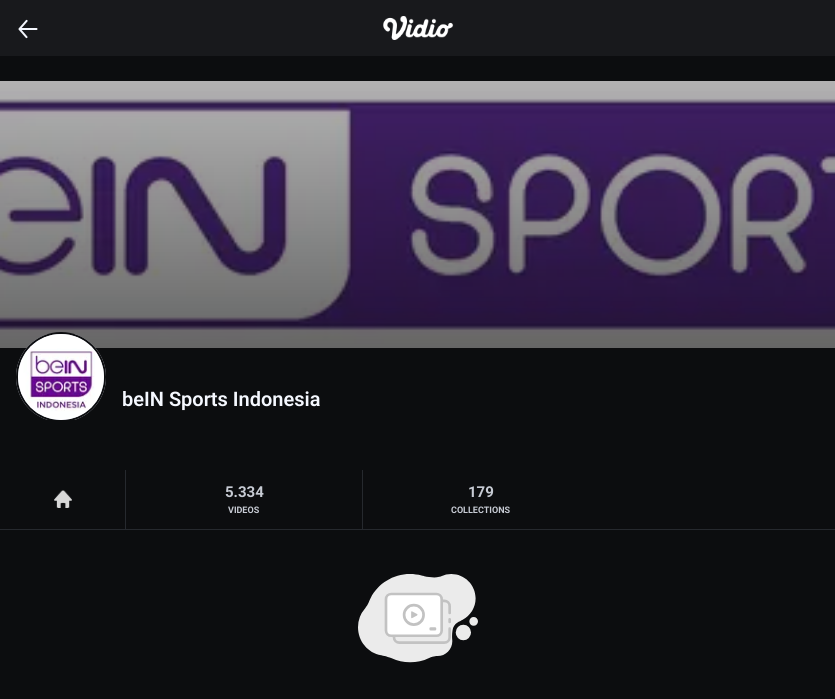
#include <cairo.h>
#include <math.h>
#include <stddef.h>


static void rgb(cairo_t *cr, int r, int g, int b)
{
	cairo_set_source_rgb(cr, r / 255.0, g / 255.0, b / 255.0);
}

static void face(cairo_t *cr, const char *family, double size, int italic, int bold)
{
	cairo_select_font_face(cr, family, italic ? CAIRO_FONT_SLANT_ITALIC : CAIRO_FONT_SLANT_NORMAL,
		bold ? CAIRO_FONT_WEIGHT_BOLD : CAIRO_FONT_WEIGHT_NORMAL);
	cairo_set_font_size(cr, size);
}

static void label(cairo_t *cr, double x, double y, const char *s)
{
	cairo_move_to(cr, x, y);
	cairo_show_text(cr, s);
}

static void rect(cairo_t *cr, double x, double y, double w, double h)
{
	cairo_rectangle(cr, x, y, w, h);
	cairo_fill(cr);
}

static void rrect(cairo_t *cr, double x, double y, double w, double h, double r)
{
	cairo_new_sub_path(cr);
	cairo_arc(cr, x + w - r, y + h - r, r, 0, M_PI / 2);
	cairo_arc(cr, x + r, y + h - r, r, M_PI / 2, M_PI);
	cairo_arc(cr, x + r, y + r, r, M_PI, 1.5 * M_PI);
	cairo_arc(cr, x + w - r, y + r, r, 1.5 * M_PI, 2 * M_PI);
	cairo_close_path(cr);
}

static void image(cairo_t *cr, const char *path, double x, double y, double w, double h)
{
	cairo_surface_t *image = cairo_image_surface_create_from_png(path);
	cairo_save(cr);
	cairo_set_source_surface(cr, image, x, y);
	cairo_rectangle(cr, x, y, w, h);
	cairo_fill(cr);
	cairo_restore(cr);
	cairo_surface_destroy(image);
}

static void draw(cairo_t *cr) {
	cairo_pattern_t *gradient;
	rgb(cr, 12, 13, 15);
	cairo_paint(cr);
	rgb(cr, 24, 25, 28);
	rect(cr, 0, 0, 835, 56);
	image(cr, "image0.png", 18, 19, 20, 20);
	image(cr, "image1.png", 383, 16, 71, 24);
	image(cr, "image2.png", 0, 81, 835, 267);
	cairo_save(cr);
	rrect(cr, 16, 332, 90, 90, 45);
	cairo_clip(cr);
	gradient = cairo_pattern_create_linear(61, 334, 61, 420);
	cairo_pattern_add_color_stop_rgba(gradient, 0, 0.91, 0.918, 0.957, 1);
	cairo_pattern_add_color_stop_rgba(gradient, 1, 0.792, 0.808, 0.871, 1);
	cairo_set_source(cr, gradient);
	cairo_pattern_destroy(gradient);
	rect(cr, 16, 334, 90, 86);
	cairo_restore(cr);
	cairo_arc(cr, 61, 377, 44, 0, 2 * M_PI);
	rgb(cr, 12, 13, 15);
	cairo_stroke(cr);
	image(cr, "image3.png", 18, 334, 86, 86);
	face(cr, "Roboto SemiBold", 20, 0, 0);
	rgb(cr, 245, 248, 255);
	label(cr, 122, 406, "beIN Sports Indonesia");
	rgb(cr, 38, 41, 46);
	rect(cr, 0, 529, 835, 1);
	image(cr, "image4.png", 54, 490, 18, 18);
	rect(cr, 125, 470, 1, 59);
	face(cr, "Roboto", 15, 0, 1);
	rgb(cr, 199, 203, 212);
	label(cr, 225, 497, "5.334");
	face(cr, "Roboto", 9, 0, 1);
	label(cr, 228, 513, "VIDEOS");
	rgb(cr, 38, 41, 46);
	rect(cr, 362, 470, 1, 59);
	face(cr, "Roboto", 15, 0, 1);
	rgb(cr, 199, 203, 212);
	label(cr, 468, 497, "179");
	face(cr, "Roboto", 9, 0, 1);
	label(cr, 451, 513, "COLLECTIONS");
	image(cr, "image5.png", 358, 574, 120, 89);
}

int main(void) {
	cairo_surface_t *surface = cairo_image_surface_create(CAIRO_FORMAT_RGB24, 835, 699);
	cairo_t *cr = cairo_create(surface);
	cairo_font_options_t *options = cairo_font_options_create();
	cairo_font_options_set_hint_metrics(options, CAIRO_HINT_METRICS_OFF);
	cairo_font_options_set_hint_style(options, CAIRO_HINT_STYLE_NONE);
	cairo_set_font_options(cr, options);
	cairo_set_miter_limit(cr, 4);
	draw(cr);
	cairo_surface_write_to_png(surface, "render.png");
	cairo_font_options_destroy(options);
	cairo_destroy(cr);
	cairo_surface_destroy(surface);
	return 0;
}
